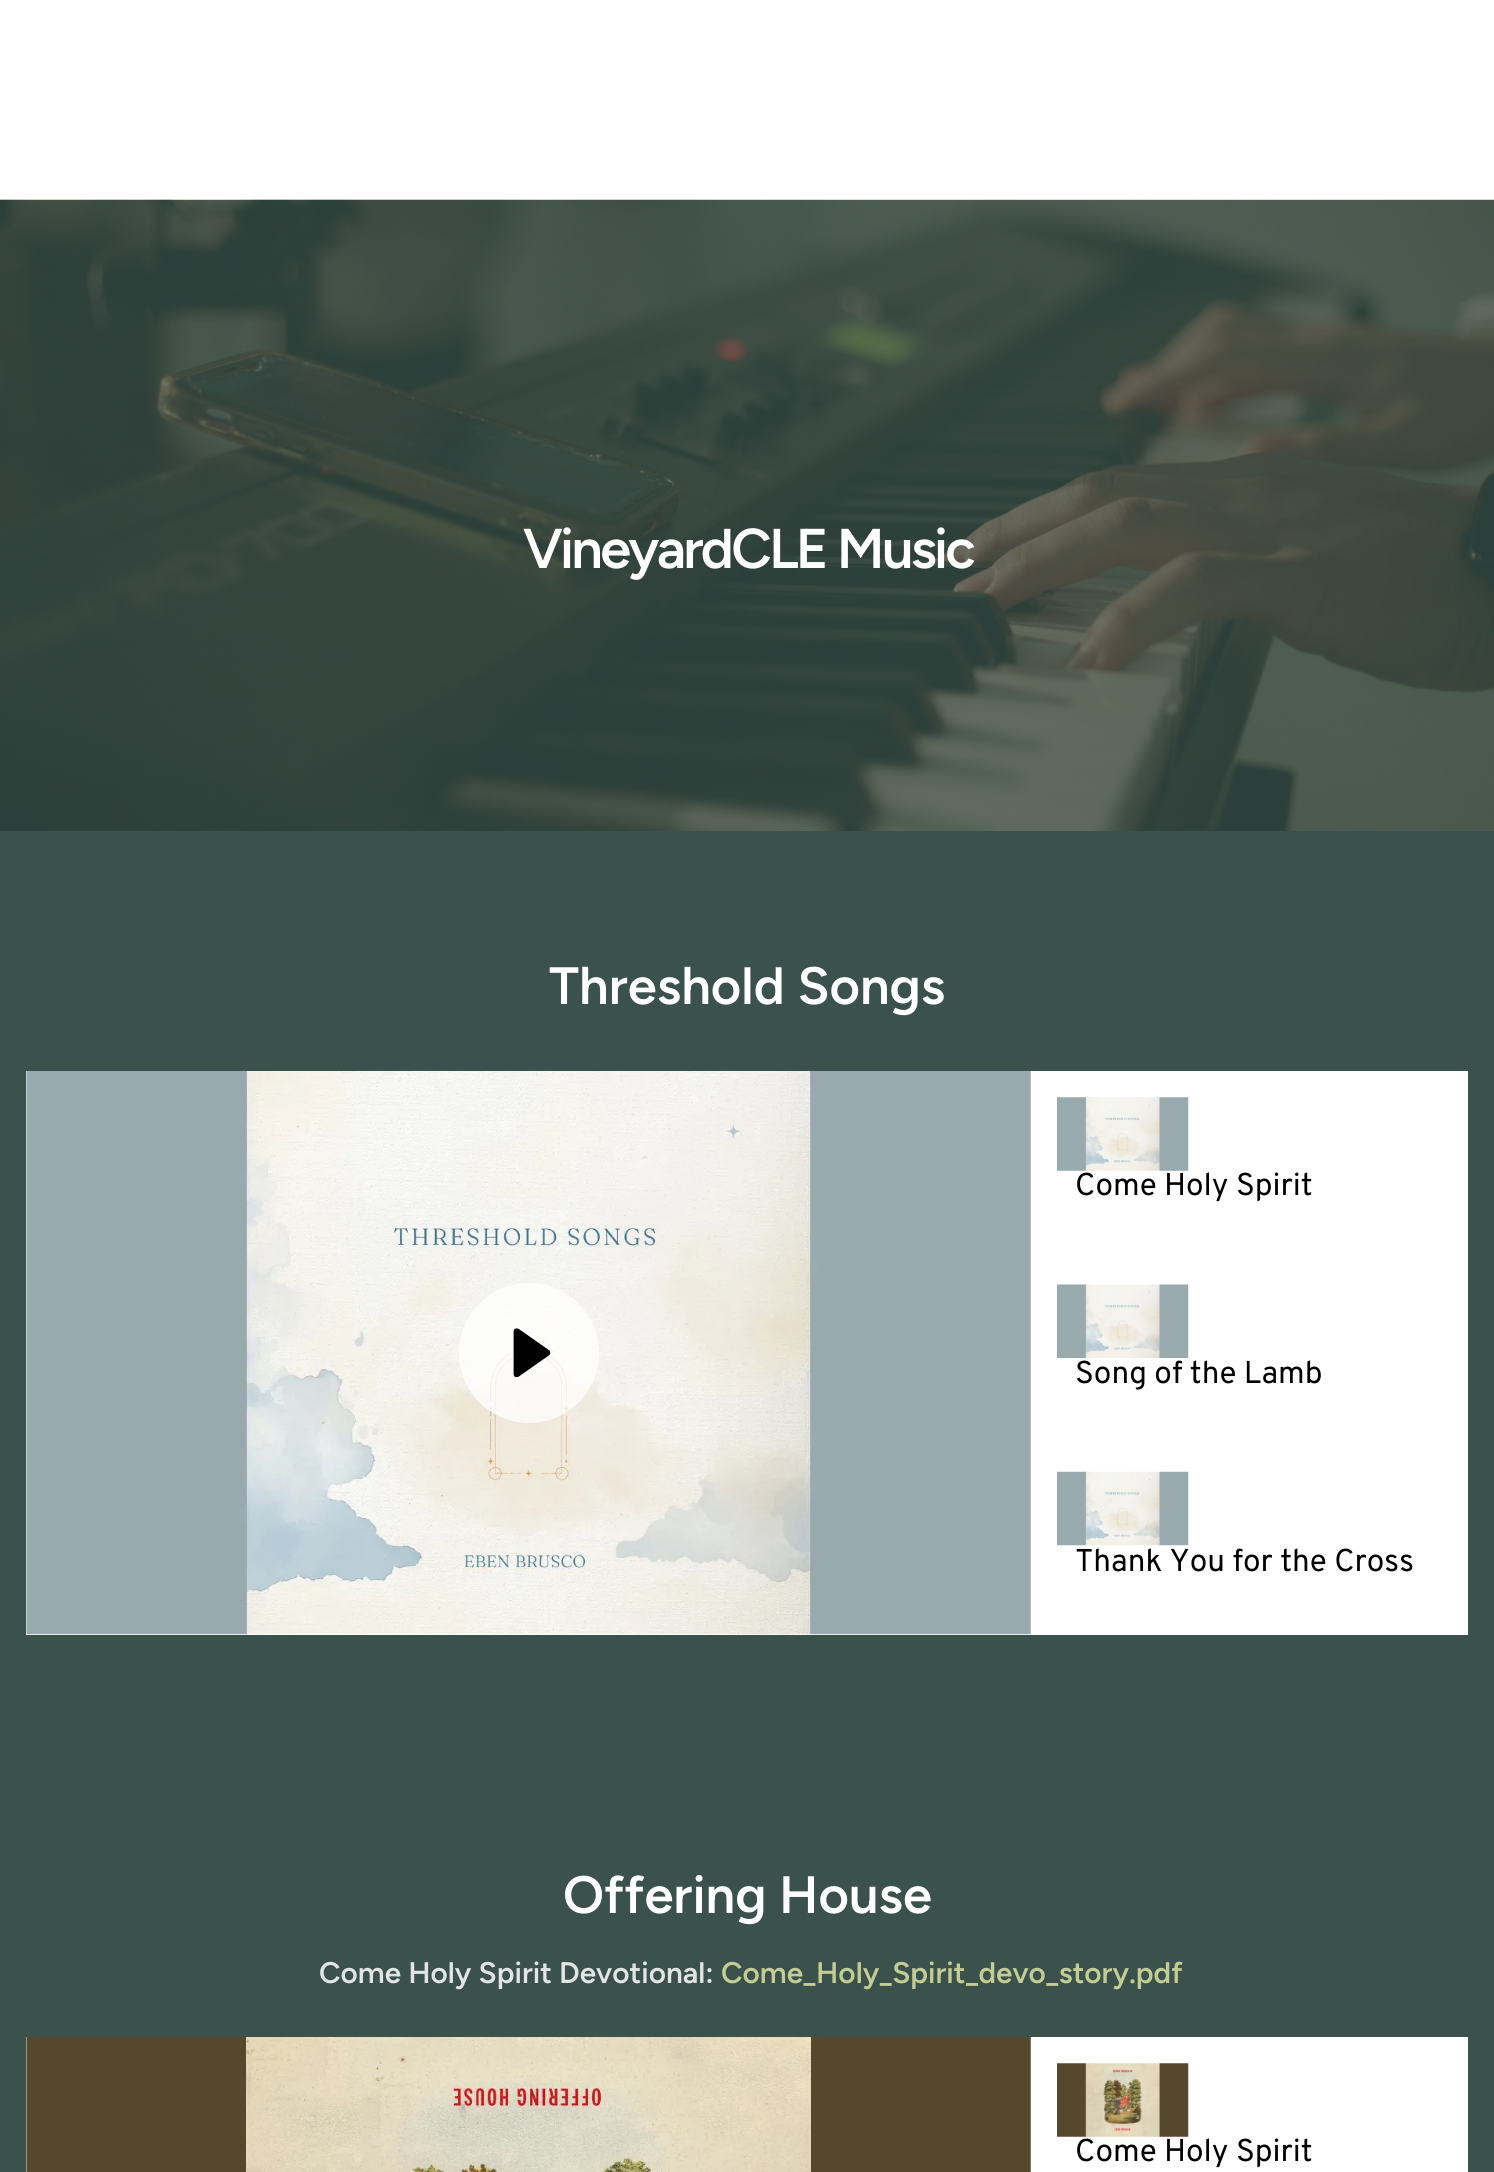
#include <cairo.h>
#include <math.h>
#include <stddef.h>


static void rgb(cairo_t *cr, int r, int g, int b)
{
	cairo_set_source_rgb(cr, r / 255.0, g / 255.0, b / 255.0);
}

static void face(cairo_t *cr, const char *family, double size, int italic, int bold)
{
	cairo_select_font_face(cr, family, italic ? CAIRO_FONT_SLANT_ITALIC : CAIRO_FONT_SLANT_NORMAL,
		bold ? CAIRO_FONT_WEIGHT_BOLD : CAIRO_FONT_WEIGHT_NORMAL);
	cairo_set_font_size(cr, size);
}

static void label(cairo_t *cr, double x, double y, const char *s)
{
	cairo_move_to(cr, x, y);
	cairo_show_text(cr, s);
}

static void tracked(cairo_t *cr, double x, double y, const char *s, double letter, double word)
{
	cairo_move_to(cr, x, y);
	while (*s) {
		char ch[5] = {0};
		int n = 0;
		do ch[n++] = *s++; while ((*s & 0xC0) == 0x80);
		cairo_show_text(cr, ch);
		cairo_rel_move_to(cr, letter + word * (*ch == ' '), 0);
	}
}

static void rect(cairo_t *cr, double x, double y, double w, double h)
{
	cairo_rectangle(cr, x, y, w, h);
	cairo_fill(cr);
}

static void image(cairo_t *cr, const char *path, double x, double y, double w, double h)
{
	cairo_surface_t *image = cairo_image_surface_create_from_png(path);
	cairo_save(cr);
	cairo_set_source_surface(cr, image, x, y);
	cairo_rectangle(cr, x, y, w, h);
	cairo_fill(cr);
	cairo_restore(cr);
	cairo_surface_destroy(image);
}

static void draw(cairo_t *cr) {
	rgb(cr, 255, 255, 255);
	cairo_paint(cr);
	image(cr, "image0.png", 0, 199, 1494, 632);
	face(cr, "Figtree SemiBold", 56, 0, 0);
	rgb(cr, 255, 255, 255);
	tracked(cr, 523, 568, "VineyardCLE Music", -2.75, 0);
	rgb(cr, 59, 82, 76);
	rect(cr, 0, 831, 1494, 1341);
	face(cr, "Figtree SemiBold", 52.5, 0, 0);
	rgb(cr, 255, 255, 255);
	label(cr, 549, 1004, "Threshold Songs");
	rect(cr, 26, 1071, 1442, 564);
	image(cr, "image1.png", 26, 1071, 1005, 564);
	cairo_set_source_rgba(cr, 1, 1, 1, 0.75);
	cairo_arc(cr, 529, 1353, 70, 0, 2 * M_PI);
	cairo_fill(cr);
	image(cr, "image2.png", 513, 1328, 38, 50);
	image(cr, "image3.png", 1057, 1097, 132, 74);
	face(cr, "Overpass", 31.5, 0, 0);
	rgb(cr, 0, 0, 0);
	label(cr, 1075, 1195, "Come Holy Spirit");
	image(cr, "image4.png", 1057, 1284, 132, 74);
	label(cr, 1075, 1383, "Song of the Lamb");
	image(cr, "image5.png", 1057, 1471, 132, 75);
	label(cr, 1075, 1571, "Thank You for the Cross");
	face(cr, "Figtree SemiBold", 52.5, 0, 0);
	rgb(cr, 255, 255, 255);
	label(cr, 563, 1913, "Offering House");
	face(cr, "Figtree SemiBold", 29.75, 0, 0);
	rgb(cr, 226, 229, 228);
	label(cr, 319, 1983, "Come Holy Spirit Devotional:");
	rgb(cr, 195, 204, 149);
	label(cr, 721, 1983, "Come_Holy_Spirit_devo_story.pdf");
	rgb(cr, 255, 255, 255);
	rect(cr, 26, 2037, 1442, 135);
	image(cr, "image6.png", 26, 2037, 1005, 135);
	image(cr, "image7.png", 1057, 2063, 132, 74);
	face(cr, "Overpass", 31.5, 0, 0);
	rgb(cr, 0, 0, 0);
	label(cr, 1075, 2161, "Come Holy Spirit");
}

int main(void) {
	cairo_surface_t *surface = cairo_image_surface_create(CAIRO_FORMAT_RGB24, 1494, 2172);
	cairo_t *cr = cairo_create(surface);
	cairo_font_options_t *options = cairo_font_options_create();
	cairo_font_options_set_hint_metrics(options, CAIRO_HINT_METRICS_OFF);
	cairo_font_options_set_hint_style(options, CAIRO_HINT_STYLE_NONE);
	cairo_set_font_options(cr, options);
	cairo_set_miter_limit(cr, 4);
	draw(cr);
	cairo_surface_write_to_png(surface, "render.png");
	cairo_font_options_destroy(options);
	cairo_destroy(cr);
	cairo_surface_destroy(surface);
	return 0;
}
